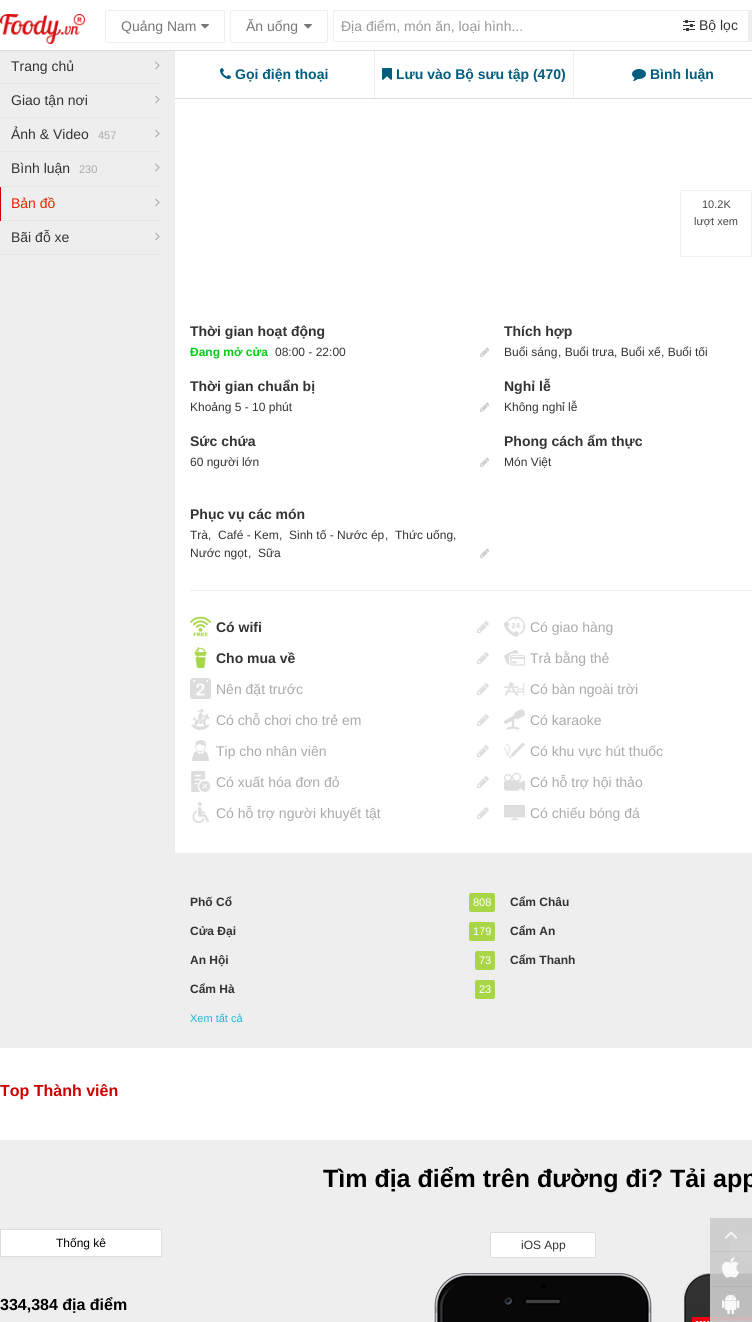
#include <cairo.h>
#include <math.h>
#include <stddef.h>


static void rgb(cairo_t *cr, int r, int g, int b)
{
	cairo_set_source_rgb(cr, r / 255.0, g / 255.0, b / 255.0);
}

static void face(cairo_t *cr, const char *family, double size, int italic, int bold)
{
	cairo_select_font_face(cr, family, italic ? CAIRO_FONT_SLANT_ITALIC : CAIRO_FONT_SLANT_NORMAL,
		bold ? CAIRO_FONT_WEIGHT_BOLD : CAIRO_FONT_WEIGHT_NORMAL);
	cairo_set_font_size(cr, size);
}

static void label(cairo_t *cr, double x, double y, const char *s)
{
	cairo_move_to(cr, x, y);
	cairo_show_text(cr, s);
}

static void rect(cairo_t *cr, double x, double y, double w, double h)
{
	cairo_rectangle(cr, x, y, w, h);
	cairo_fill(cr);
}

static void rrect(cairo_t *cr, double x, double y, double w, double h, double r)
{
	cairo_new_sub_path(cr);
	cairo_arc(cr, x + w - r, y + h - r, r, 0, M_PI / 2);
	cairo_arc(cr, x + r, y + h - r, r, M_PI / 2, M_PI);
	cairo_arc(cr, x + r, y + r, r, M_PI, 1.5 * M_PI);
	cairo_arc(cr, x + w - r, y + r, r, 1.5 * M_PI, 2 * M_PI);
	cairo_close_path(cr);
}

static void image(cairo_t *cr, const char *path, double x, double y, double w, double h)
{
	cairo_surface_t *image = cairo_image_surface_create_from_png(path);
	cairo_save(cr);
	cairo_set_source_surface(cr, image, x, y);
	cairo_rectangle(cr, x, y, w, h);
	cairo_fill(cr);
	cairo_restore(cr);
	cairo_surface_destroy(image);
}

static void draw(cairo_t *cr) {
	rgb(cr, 238, 238, 238);
	cairo_paint(cr);
	rgb(cr, 255, 255, 255);
	rect(cr, 0, 0, 752, 50);
	rgb(cr, 221, 221, 221);
	rect(cr, 0, 50, 752, 1);
	image(cr, "image0.png", 0, 14, 85, 30);
	rrect(cr, 105.5, 10.5, 119, 32, 1.5);
	rgb(cr, 238, 238, 238);
	cairo_set_line_width(cr, 1);
	cairo_stroke(cr);
	face(cr, "Liberation Sans", 14, 0, 0);
	rgb(cr, 119, 119, 119);
	label(cr, 121, 31, "Quảng Nam");
	image(cr, "image1.png", 201, 24, 8, 5);
	rrect(cr, 230.5, 10.5, 97, 32, 1.5);
	rgb(cr, 238, 238, 238);
	cairo_stroke(cr);
	rgb(cr, 119, 119, 119);
	label(cr, 246, 31, "Ăn uống");
	image(cr, "image1.png", 304, 24, 8, 5);
	rgb(cr, 238, 238, 238);
	rect(cr, 333, 10, 415, 1);
	rect(cr, 333, 41, 415, 1);
	rect(cr, 333, 10, 1, 32);
	rgb(cr, 153, 153, 153);
	label(cr, 341, 31, "Địa điểm, món ăn, loại hình...");
	image(cr, "image2.png", 683, 20, 12, 11);
	rgb(cr, 51, 51, 51);
	label(cr, 699, 30, "Bộ lọc");
	rgb(cr, 238, 238, 238);
	rect(cr, 748, 10, 4, 32);
	rgb(cr, 230, 230, 230);
	rect(cr, 0, 83, 160, 1);
	rgb(cr, 238, 238, 238);
	rect(cr, 0, 83, 1, 1);
	rgb(cr, 51, 51, 51);
	label(cr, 11, 71, "Trang chủ");
	image(cr, "image3.png", 155, 61, 5, 9);
	rgb(cr, 230, 230, 230);
	rect(cr, 0, 117, 160, 1);
	rgb(cr, 238, 238, 238);
	rect(cr, 0, 117, 1, 1);
	rgb(cr, 51, 51, 51);
	label(cr, 11, 105, "Giao tận nơi");
	image(cr, "image3.png", 155, 95, 5, 9);
	rgb(cr, 230, 230, 230);
	rect(cr, 0, 151, 160, 1);
	rgb(cr, 238, 238, 238);
	rect(cr, 0, 151, 1, 1);
	rgb(cr, 51, 51, 51);
	label(cr, 11, 139, "Ảnh & Video");
	face(cr, "Liberation Sans", 11, 0, 0);
	rgb(cr, 170, 170, 170);
	label(cr, 98, 139, "457");
	image(cr, "image3.png", 155, 129, 5, 9);
	rgb(cr, 230, 230, 230);
	rect(cr, 0, 186, 160, 1);
	rgb(cr, 238, 238, 238);
	rect(cr, 0, 186, 1, 1);
	face(cr, "Liberation Sans", 14, 0, 0);
	rgb(cr, 51, 51, 51);
	label(cr, 11, 173, "Bình luận");
	face(cr, "Liberation Sans", 11, 0, 0);
	rgb(cr, 170, 170, 170);
	label(cr, 79, 173, "230");
	image(cr, "image3.png", 155, 163, 5, 9);
	rgb(cr, 230, 230, 230);
	rect(cr, 0, 220, 160, 1);
	rgb(cr, 204, 0, 0);
	rect(cr, 0, 187, 1, 34);
	face(cr, "Liberation Sans", 14, 0, 0);
	rgb(cr, 229, 36, 2);
	label(cr, 11, 208, "Bản đồ");
	image(cr, "image3.png", 155, 198, 5, 9);
	rgb(cr, 230, 230, 230);
	rect(cr, 0, 254, 160, 1);
	rgb(cr, 238, 238, 238);
	rect(cr, 0, 254, 1, 1);
	rgb(cr, 51, 51, 51);
	label(cr, 11, 242, "Bãi đỗ xe");
	image(cr, "image3.png", 155, 232, 5, 9);
	rgb(cr, 255, 255, 255);
	rect(cr, 175, 51, 577, 47);
	rgb(cr, 221, 221, 221);
	rect(cr, 175, 98, 577, 1);
	rgb(cr, 240, 240, 240);
	rect(cr, 374, 51, 1, 47);
	image(cr, "image4.png", 220, 68, 11, 11);
	face(cr, "Liberation Sans", 14, 0, 1);
	rgb(cr, 0, 93, 128);
	label(cr, 235, 79, "Gọi điện thoại");
	rgb(cr, 240, 240, 240);
	rect(cr, 573, 51, 1, 47);
	image(cr, "image5.png", 382, 68, 10, 12);
	rgb(cr, 0, 93, 128);
	label(cr, 396, 79, "Lưu vào Bộ sưu tập (470)");
	image(cr, "image6.png", 632, 69, 14, 12);
	label(cr, 650, 79, "Bình luận");
	rgb(cr, 255, 255, 255);
	rect(cr, 175, 99, 577, 754);
	rgb(cr, 51, 51, 51);
	label(cr, 190, 336, "Thời gian hoạt động");
	face(cr, "Liberation Sans", 12, 0, 1);
	rgb(cr, 5, 205, 21);
	label(cr, 190, 356, "Đang mở cửa");
	face(cr, "Liberation Sans", 12, 0, 0);
	rgb(cr, 51, 51, 51);
	label(cr, 275, 356, "08:00 - 22:00");
	image(cr, "image7.png", 480, 347, 9, 10);
	face(cr, "Liberation Sans", 14, 0, 1);
	label(cr, 504, 336, "Thích hợp");
	face(cr, "Liberation Sans", 12, 0, 0);
	label(cr, 504, 356, "Buổi sáng");
	label(cr, 558, 356, ", Buổi trưa");
	label(cr, 614, 356, ", Buổi xế");
	label(cr, 661, 356, ", Buổi tối");
	face(cr, "Liberation Sans", 14, 0, 1);
	label(cr, 190, 391, "Thời gian chuẩn bị");
	face(cr, "Liberation Sans", 12, 0, 0);
	label(cr, 190, 411, "Khoảng 5 - 10 phút");
	image(cr, "image7.png", 480, 402, 9, 10);
	face(cr, "Liberation Sans", 14, 0, 1);
	label(cr, 504, 391, "Nghỉ lễ");
	face(cr, "Liberation Sans", 12, 0, 0);
	label(cr, 504, 411, "Không nghỉ lễ");
	face(cr, "Liberation Sans", 14, 0, 1);
	label(cr, 190, 446, "Sức chứa");
	face(cr, "Liberation Sans", 12, 0, 0);
	label(cr, 190, 466, "60 người lớn");
	image(cr, "image7.png", 480, 457, 9, 10);
	face(cr, "Liberation Sans", 14, 0, 1);
	label(cr, 504, 446, "Phong cách ẩm thực");
	face(cr, "Liberation Sans", 12, 0, 0);
	label(cr, 504, 466, "Món Việt");
	face(cr, "Liberation Sans", 14, 0, 1);
	label(cr, 190, 519, "Phục vụ các món");
	face(cr, "Liberation Sans", 12, 0, 0);
	label(cr, 190, 539, "Trà");
	label(cr, 208, 539, ",");
	label(cr, 218, 539, "Café - Kem");
	label(cr, 279, 539, ",");
	label(cr, 289, 539, "Sinh tố - Nước ép");
	label(cr, 385, 539, ",");
	label(cr, 395, 539, "Thức uống");
	label(cr, 453, 539, ",");
	label(cr, 190, 557, "Nước ngọt");
	label(cr, 248, 557, ",");
	label(cr, 258, 557, "Sữa");
	image(cr, "image7.png", 480, 548, 9, 10);
	rgb(cr, 238, 238, 238);
	rect(cr, 190, 590, 562, 1);
	image(cr, "image8.png", 190, 616, 21, 21);
	face(cr, "Liberation Sans", 14, 0, 1);
	rgb(cr, 51, 51, 51);
	label(cr, 216, 632, "Có wifi");
	image(cr, "image9.png", 477, 621, 12, 12);
	image(cr, "image10.png", 504, 616, 21, 21);
	face(cr, "Liberation Sans", 14, 0, 0);
	rgb(cr, 170, 170, 170);
	label(cr, 530, 632, "Có giao hàng");
	image(cr, "image11.png", 194, 647, 13, 21);
	face(cr, "Liberation Sans", 14, 0, 1);
	rgb(cr, 51, 51, 51);
	label(cr, 216, 663, "Cho mua về");
	image(cr, "image9.png", 477, 652, 12, 12);
	image(cr, "image12.png", 504, 650, 21, 16);
	face(cr, "Liberation Sans", 14, 0, 0);
	rgb(cr, 170, 170, 170);
	label(cr, 530, 663, "Trả bằng thẻ");
	image(cr, "image13.png", 190, 678, 21, 21);
	label(cr, 216, 694, "Nên đặt trước");
	image(cr, "image9.png", 477, 683, 12, 12);
	image(cr, "image14.png", 504, 681, 21, 15);
	label(cr, 530, 694, "Có bàn ngoài trời");
	image(cr, "image15.png", 191, 709, 19, 21);
	label(cr, 216, 725, "Có chỗ chơi cho trẻ em");
	image(cr, "image9.png", 477, 714, 12, 12);
	image(cr, "image16.png", 504, 709, 21, 21);
	label(cr, 530, 725, "Có karaoke");
	image(cr, "image17.png", 192, 740, 17, 21);
	label(cr, 216, 756, "Tip cho nhân viên");
	image(cr, "image9.png", 477, 745, 12, 12);
	image(cr, "image18.png", 504, 742, 21, 17);
	label(cr, 530, 756, "Có khu vực hút thuốc");
	image(cr, "image19.png", 191, 771, 20, 21);
	label(cr, 216, 787, "Có xuất hóa đơn đỏ");
	image(cr, "image9.png", 477, 776, 12, 12);
	image(cr, "image20.png", 504, 772, 21, 19);
	label(cr, 530, 787, "Có hỗ trợ hội thảo");
	image(cr, "image21.png", 192, 802, 17, 21);
	label(cr, 216, 818, "Có hỗ trợ người khuyết tật");
	image(cr, "image9.png", 477, 807, 12, 12);
	image(cr, "image22.png", 504, 805, 21, 16);
	label(cr, 530, 818, "Có chiếu bóng đá");
	face(cr, "Liberation Sans", 12, 0, 1);
	rgb(cr, 51, 51, 51);
	label(cr, 190, 906, "Phố Cổ");
	rgb(cr, 169, 214, 71);
	rrect(cr, 469, 893, 26, 19, 2);
	cairo_fill(cr);
	face(cr, "Liberation Sans", 11, 0, 0);
	rgb(cr, 255, 255, 255);
	label(cr, 473, 906, "808");
	face(cr, "Liberation Sans", 12, 0, 1);
	rgb(cr, 51, 51, 51);
	label(cr, 510, 906, "Cẩm Châu");
	label(cr, 190, 935, "Cửa Đại");
	rgb(cr, 169, 214, 71);
	rrect(cr, 469, 922, 26, 19, 2);
	cairo_fill(cr);
	face(cr, "Liberation Sans", 11, 0, 0);
	rgb(cr, 255, 255, 255);
	label(cr, 473, 935, "179");
	face(cr, "Liberation Sans", 12, 0, 1);
	rgb(cr, 51, 51, 51);
	label(cr, 510, 935, "Cẩm An");
	label(cr, 190, 964, "An Hội");
	rgb(cr, 169, 214, 71);
	rrect(cr, 475, 951, 20, 19, 2);
	cairo_fill(cr);
	face(cr, "Liberation Sans", 11, 0, 0);
	rgb(cr, 255, 255, 255);
	label(cr, 479, 964, "73");
	face(cr, "Liberation Sans", 12, 0, 1);
	rgb(cr, 51, 51, 51);
	label(cr, 510, 964, "Cẩm Thanh");
	label(cr, 190, 993, "Cẩm Hà");
	rgb(cr, 169, 214, 71);
	rrect(cr, 475, 980, 20, 19, 2);
	cairo_fill(cr);
	face(cr, "Liberation Sans", 11, 0, 0);
	rgb(cr, 255, 255, 255);
	label(cr, 479, 993, "23");
	rgb(cr, 35, 179, 214);
	label(cr, 190, 1022, "Xem tất cả");
	cairo_rectangle(cr, 680.5, 190.5, 71, 66);
	rgb(cr, 240, 240, 240);
	cairo_stroke(cr);
	rgb(cr, 71, 71, 71);
	label(cr, 702, 208, "10.2K");
	label(cr, 694, 225, "lượt xem");
	rgb(cr, 255, 255, 255);
	rect(cr, 0, 1048, 752, 92);
	face(cr, "Liberation Sans", 16, 0, 1);
	rgb(cr, 204, 0, 0);
	label(cr, 0, 1096, "Top Thành viên");
	face(cr, "Liberation Sans", 25, 0, 1);
	rgb(cr, 0, 0, 0);
	label(cr, 323, 1187, "Tìm địa điểm trên đường đi? Tải app");
	rgb(cr, 255, 255, 255);
	cairo_rectangle(cr, 0.5, 1229.5, 161, 27);
	cairo_fill_preserve(cr);
	rgb(cr, 221, 221, 221);
	cairo_stroke(cr);
	face(cr, "Liberation Sans", 12, 0, 0);
	rgb(cr, 0, 0, 0);
	label(cr, 56, 1247, "Thống kê");
	face(cr, "Liberation Sans", 16, 0, 1);
	label(cr, 0, 1310, "334,384 địa điểm");
	rgb(cr, 255, 255, 255);
	rrect(cr, 490.5, 1232.5, 105, 25, 1.5);
	cairo_fill_preserve(cr);
	rgb(cr, 221, 221, 221);
	cairo_stroke(cr);
	face(cr, "Liberation Sans", 12, 0, 0);
	rgb(cr, 51, 51, 51);
	label(cr, 521, 1249, "iOS App");
	image(cr, "image23.png", 434, 1273, 218, 49);
	rgb(cr, 255, 255, 255);
	rrect(cr, 729.5, 1232.5, 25, 25, 1.5);
	cairo_fill_preserve(cr);
	rgb(cr, 221, 221, 221);
	cairo_stroke(cr);
	image(cr, "image24.png", 683, 1273, 69, 49);
	cairo_set_source_rgba(cr, 0.8, 0.8, 0.8, 0.9);
	rect(cr, 710, 1218, 42, 104);
	cairo_set_source_rgba(cr, 0.761, 0.761, 0.761, 0.9);
	rect(cr, 710, 1251, 42, 1);
	image(cr, "image25.png", 725, 1231, 12, 8);
	rgb(cr, 179, 179, 179);
	rect(cr, 710, 1286, 42, 1);
	image(cr, "image26.png", 722, 1257, 17, 21);
	cairo_set_source_rgba(cr, 0.761, 0.761, 0.761, 0.9);
	rect(cr, 710, 1321, 42, 1);
	image(cr, "image27.png", 722, 1293, 18, 22);
}

int main(void) {
	cairo_surface_t *surface = cairo_image_surface_create(CAIRO_FORMAT_RGB24, 752, 1322);
	cairo_t *cr = cairo_create(surface);
	cairo_font_options_t *options = cairo_font_options_create();
	cairo_font_options_set_hint_metrics(options, CAIRO_HINT_METRICS_OFF);
	cairo_font_options_set_hint_style(options, CAIRO_HINT_STYLE_NONE);
	cairo_set_font_options(cr, options);
	cairo_set_miter_limit(cr, 4);
	draw(cr);
	cairo_surface_write_to_png(surface, "render.png");
	cairo_font_options_destroy(options);
	cairo_destroy(cr);
	cairo_surface_destroy(surface);
	return 0;
}
